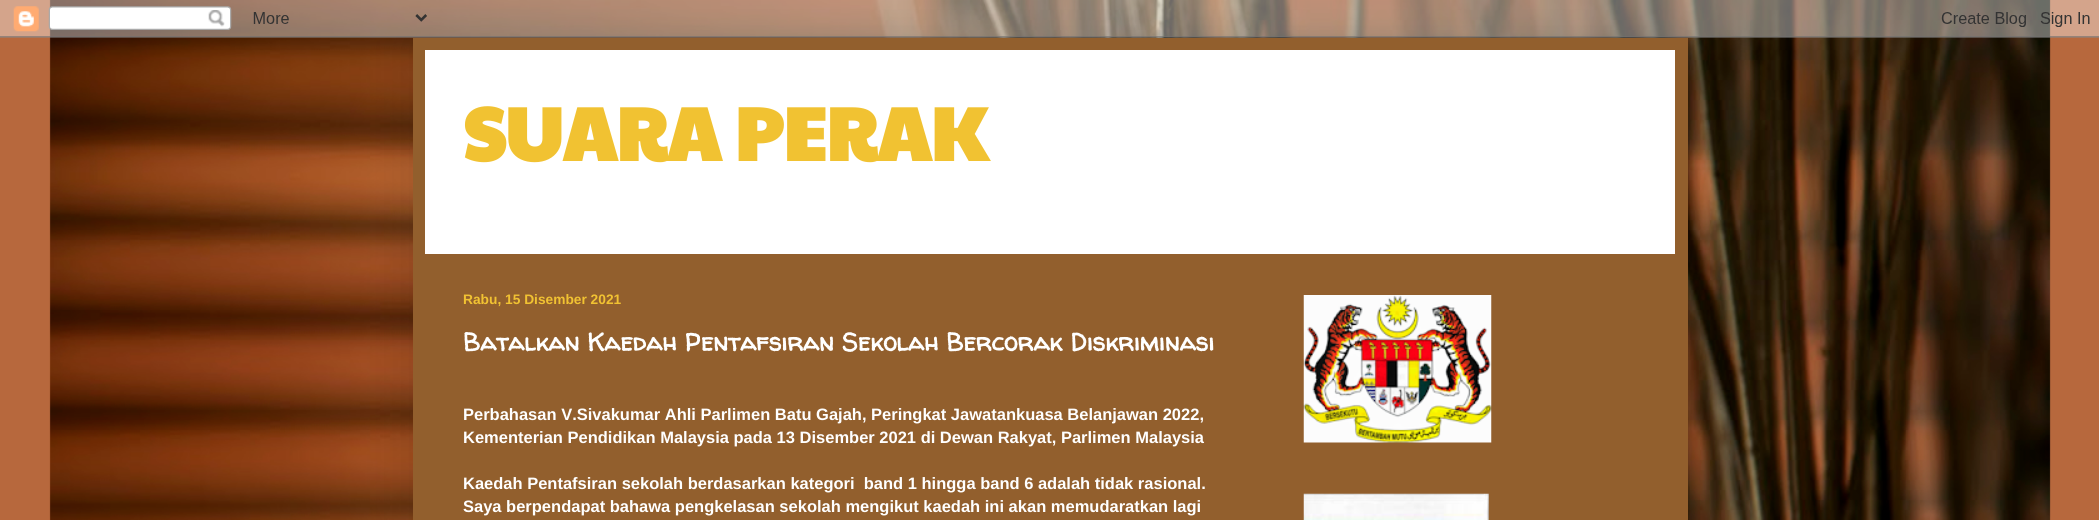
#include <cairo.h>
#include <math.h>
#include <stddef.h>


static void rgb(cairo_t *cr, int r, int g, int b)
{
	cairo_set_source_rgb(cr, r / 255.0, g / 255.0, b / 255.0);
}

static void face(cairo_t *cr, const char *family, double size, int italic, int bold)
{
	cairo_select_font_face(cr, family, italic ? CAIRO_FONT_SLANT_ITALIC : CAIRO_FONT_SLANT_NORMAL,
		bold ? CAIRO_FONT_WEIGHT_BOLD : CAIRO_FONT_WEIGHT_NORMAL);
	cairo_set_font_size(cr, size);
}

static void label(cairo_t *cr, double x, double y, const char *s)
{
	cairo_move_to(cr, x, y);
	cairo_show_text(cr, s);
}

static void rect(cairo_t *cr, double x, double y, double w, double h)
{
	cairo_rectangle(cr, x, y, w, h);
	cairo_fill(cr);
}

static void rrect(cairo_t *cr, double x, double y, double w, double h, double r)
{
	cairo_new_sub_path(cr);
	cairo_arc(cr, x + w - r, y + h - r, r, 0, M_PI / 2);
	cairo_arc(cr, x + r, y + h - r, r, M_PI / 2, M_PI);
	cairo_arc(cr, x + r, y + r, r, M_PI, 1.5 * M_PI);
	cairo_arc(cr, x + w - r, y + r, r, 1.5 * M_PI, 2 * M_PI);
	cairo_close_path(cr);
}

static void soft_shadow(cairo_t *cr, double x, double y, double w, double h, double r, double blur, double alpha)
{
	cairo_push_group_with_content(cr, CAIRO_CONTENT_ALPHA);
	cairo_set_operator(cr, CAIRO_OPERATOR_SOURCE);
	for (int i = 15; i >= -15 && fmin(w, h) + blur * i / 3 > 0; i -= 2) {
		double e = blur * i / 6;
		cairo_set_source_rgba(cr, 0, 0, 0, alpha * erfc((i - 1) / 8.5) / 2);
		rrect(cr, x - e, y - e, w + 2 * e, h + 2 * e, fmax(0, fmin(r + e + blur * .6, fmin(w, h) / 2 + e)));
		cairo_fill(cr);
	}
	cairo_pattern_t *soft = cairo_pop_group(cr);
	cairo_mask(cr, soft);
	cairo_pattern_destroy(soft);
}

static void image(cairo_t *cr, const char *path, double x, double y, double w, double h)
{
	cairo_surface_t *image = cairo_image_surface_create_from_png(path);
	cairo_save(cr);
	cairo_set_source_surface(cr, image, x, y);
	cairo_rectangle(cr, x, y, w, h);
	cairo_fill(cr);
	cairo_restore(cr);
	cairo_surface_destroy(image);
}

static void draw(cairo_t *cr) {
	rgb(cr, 183, 104, 61);
	cairo_paint(cr);
	image(cr, "image0.png", 49, 0, 2002, 520);
	rgb(cr, 0, 0, 0);
	soft_shadow(cr, 413, 38, 1275, 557, 0, 25, 0.15);
	image(cr, "image1.png", 0, 0, 2099, 38);
	rgb(cr, 146, 95, 45);
	rect(cr, 413, 38, 1275, 482);
	rgb(cr, 255, 255, 255);
	rect(cr, 425, 50, 1250, 204);
	face(cr, "Paytone One", 75, 0, 1);
	rgb(cr, 241, 194, 50);
	label(cr, 463, 161, "SUARA PERAK");
	face(cr, "Liberation Sans", 13.75, 0, 1);
	label(cr, 463, 304, "Rabu, 15 Disember 2021");
	face(cr, "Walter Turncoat", 25, 0, 1);
	rgb(cr, 255, 255, 255);
	label(cr, 463, 351, "Batalkan Kaedah Pentafsiran Sekolah Bercorak Diskriminasi");
	face(cr, "Liberation Sans", 16.5, 0, 1);
	label(cr, 463, 420, "Perbahasan V.Sivakumar Ahli Parlimen Batu Gajah, Peringkat Jawatankuasa Belanjawan 2022,");
	label(cr, 463, 443, "Kementerian Pendidikan Malaysia pada 13 Disember 2021 di Dewan Rakyat, Parlimen Malaysia");
	label(cr, 463, 489, "Kaedah Pentafsiran sekolah berdasarkan kategori  band 1 hingga band 6 adalah tidak rasional.");
	label(cr, 463, 512, "Saya berpendapat bahawa pengkelasan sekolah mengikut kaedah ini akan memudaratkan lagi");
	image(cr, "image2.png", 1303, 295, 189, 148);
	image(cr, "image3.png", 1303, 493, 186, 27);
}

int main(void) {
	cairo_surface_t *surface = cairo_image_surface_create(CAIRO_FORMAT_RGB24, 2099, 520);
	cairo_t *cr = cairo_create(surface);
	cairo_font_options_t *options = cairo_font_options_create();
	cairo_font_options_set_hint_metrics(options, CAIRO_HINT_METRICS_OFF);
	cairo_font_options_set_hint_style(options, CAIRO_HINT_STYLE_NONE);
	cairo_set_font_options(cr, options);
	cairo_set_miter_limit(cr, 4);
	draw(cr);
	cairo_surface_write_to_png(surface, "render.png");
	cairo_font_options_destroy(options);
	cairo_destroy(cr);
	cairo_surface_destroy(surface);
	return 0;
}
